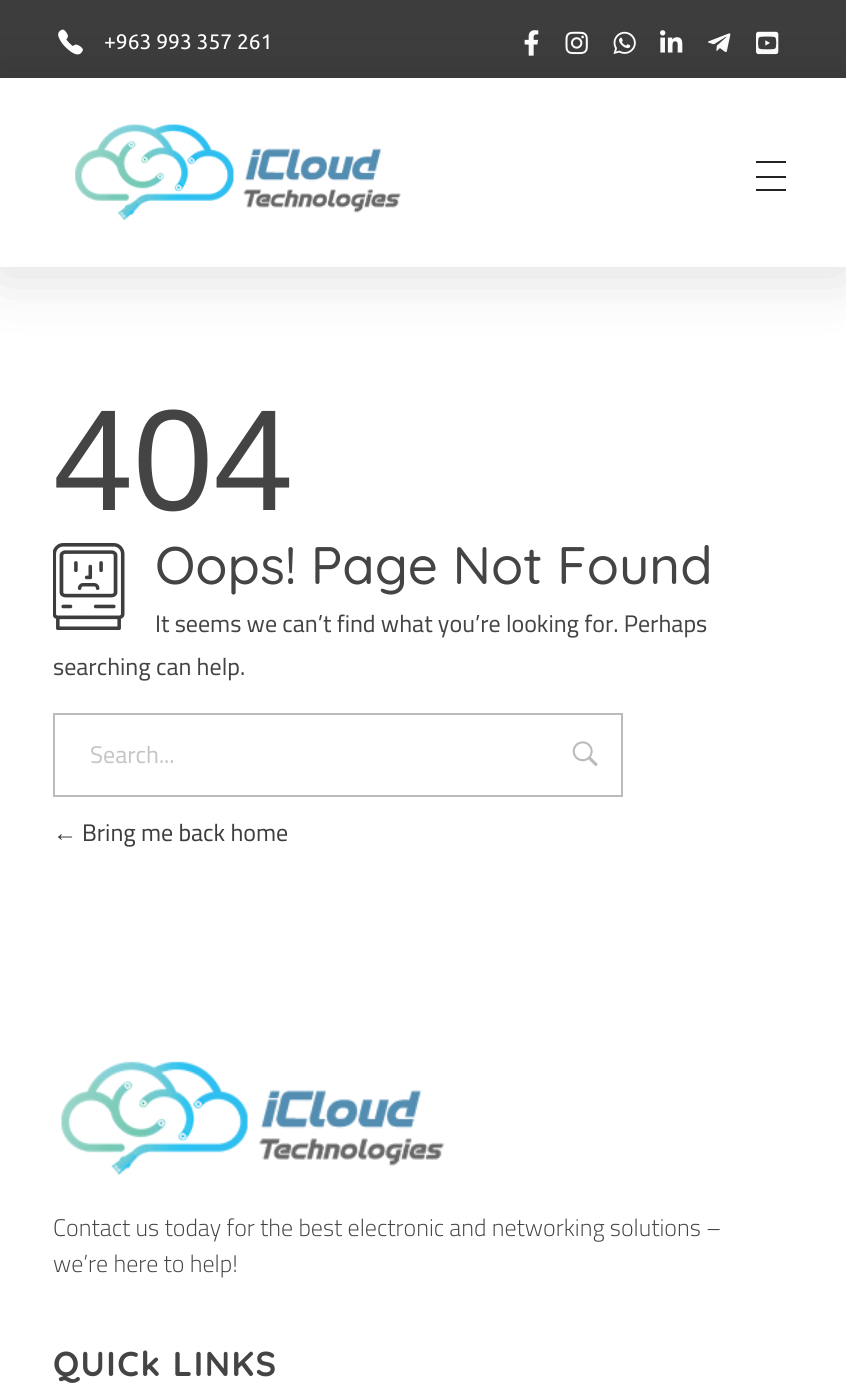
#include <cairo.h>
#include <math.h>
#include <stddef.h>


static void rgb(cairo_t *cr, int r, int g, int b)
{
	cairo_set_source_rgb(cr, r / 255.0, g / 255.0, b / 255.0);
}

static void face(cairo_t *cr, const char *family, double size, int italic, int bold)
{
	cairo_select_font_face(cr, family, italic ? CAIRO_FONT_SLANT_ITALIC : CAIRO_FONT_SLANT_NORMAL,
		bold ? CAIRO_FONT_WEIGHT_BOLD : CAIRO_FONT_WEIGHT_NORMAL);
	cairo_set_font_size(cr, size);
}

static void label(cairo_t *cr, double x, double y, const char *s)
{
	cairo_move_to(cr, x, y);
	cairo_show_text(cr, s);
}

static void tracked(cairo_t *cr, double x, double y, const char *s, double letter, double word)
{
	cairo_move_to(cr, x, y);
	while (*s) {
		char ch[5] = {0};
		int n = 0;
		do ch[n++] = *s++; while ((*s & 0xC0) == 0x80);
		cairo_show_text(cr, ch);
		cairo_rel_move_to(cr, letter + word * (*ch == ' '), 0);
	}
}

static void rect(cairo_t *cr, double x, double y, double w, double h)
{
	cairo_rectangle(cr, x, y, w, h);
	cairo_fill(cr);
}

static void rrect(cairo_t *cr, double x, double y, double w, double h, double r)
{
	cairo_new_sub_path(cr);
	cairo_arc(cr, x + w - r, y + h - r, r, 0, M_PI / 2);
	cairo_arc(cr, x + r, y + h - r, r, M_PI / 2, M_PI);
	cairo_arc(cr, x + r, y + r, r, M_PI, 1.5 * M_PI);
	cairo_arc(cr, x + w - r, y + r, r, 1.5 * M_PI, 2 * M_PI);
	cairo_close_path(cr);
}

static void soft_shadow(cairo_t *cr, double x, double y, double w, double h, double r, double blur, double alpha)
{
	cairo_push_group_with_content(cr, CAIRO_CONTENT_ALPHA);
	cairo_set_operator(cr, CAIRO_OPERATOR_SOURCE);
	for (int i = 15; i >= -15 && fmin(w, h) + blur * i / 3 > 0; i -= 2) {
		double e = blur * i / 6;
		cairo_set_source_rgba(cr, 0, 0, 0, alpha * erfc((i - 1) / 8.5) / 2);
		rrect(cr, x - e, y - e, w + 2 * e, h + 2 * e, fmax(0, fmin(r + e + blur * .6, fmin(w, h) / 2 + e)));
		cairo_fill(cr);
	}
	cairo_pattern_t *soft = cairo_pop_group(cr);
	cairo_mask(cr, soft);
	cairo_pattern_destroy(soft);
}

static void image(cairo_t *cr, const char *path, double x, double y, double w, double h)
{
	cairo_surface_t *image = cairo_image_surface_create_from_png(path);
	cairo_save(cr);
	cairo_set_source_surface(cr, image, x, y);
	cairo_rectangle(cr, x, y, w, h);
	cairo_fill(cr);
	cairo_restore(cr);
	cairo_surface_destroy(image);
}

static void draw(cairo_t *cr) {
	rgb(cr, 255, 255, 255);
	cairo_paint(cr);
	rgb(cr, 61, 61, 61);
	rect(cr, 0, 0, 846, 78);
	image(cr, "image2.png", 524, 30, 15, 26);
	image(cr, "image3.png", 565, 31, 23, 24);
	image(cr, "image4.png", 613, 31, 23, 23);
	image(cr, "image5.png", 660, 30, 23, 23);
	image(cr, "image6.png", 708, 33, 23, 20);
	image(cr, "image7.png", 756, 31, 23, 24);
	cairo_save(cr);
	cairo_set_fill_rule(cr, CAIRO_FILL_RULE_EVEN_ODD);
	cairo_new_path(cr);
	cairo_move_to(cr, 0, 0);
	cairo_line_to(cr, 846, 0);
	cairo_line_to(cr, 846, 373);
	cairo_line_to(cr, 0, 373);
	cairo_close_path(cr);
	cairo_move_to(cr, 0, 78);
	cairo_line_to(cr, 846, 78);
	cairo_line_to(cr, 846, 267);
	cairo_line_to(cr, 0, 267);
	cairo_close_path(cr);
	cairo_clip(cr);
	rgb(cr, 0, 0, 0);
	soft_shadow(cr, 0, 84, 846, 189, 0, 33, 0.14);
	cairo_restore(cr);
	image(cr, "image0.png", 75, 124, 326, 97);
	rgb(cr, 34, 34, 34);
	rect(cr, 756, 161, 30, 2);
	rect(cr, 756, 176, 30, 2);
	rect(cr, 756, 189, 30, 2);
	image(cr, "image1.png", 58, 29, 25, 26);
	face(cr, "Ubuntu", 21, 0, 0);
	rgb(cr, 255, 255, 255);
	label(cr, 104, 49, "+963 993 357 261");
	face(cr, "Liberation Sans", 144, 0, 0);
	rgb(cr, 68, 68, 68);
	label(cr, 53, 510, "404");
	image(cr, "image8.png", 53, 543, 72, 87);
	face(cr, "Quicksand Medium", 52.75, 0, 0);
	label(cr, 155, 584, "Oops! Page Not Found");
	face(cr, "Cairo", 24, 0, 0);
	label(cr, 155, 632, "It seems we can’t find what you’re looking for. Perhaps");
	label(cr, 53, 675, "searching can help.");
	cairo_rectangle(cr, 54, 714, 568, 82);
	rgb(cr, 187, 187, 187);
	cairo_stroke(cr);
	rgb(cr, 197, 197, 197);
	label(cr, 90, 763, "Search...");
	image(cr, "image9.png", 572, 741, 26, 26);
	face(cr, "Liberation Sans", 24, 0, 0);
	rgb(cr, 61, 61, 61);
	label(cr, 53, 841, "←");
	face(cr, "Cairo", 24, 0, 0);
	label(cr, 82, 841, "Bring me back home");
	image(cr, "image10.png", 61, 1061, 384, 114);
	face(cr, "Cairo Light", 24, 0, 0);
	rgb(cr, 68, 68, 68);
	label(cr, 53, 1236, "Contact us today for the best electronic and networking solutions –");
	label(cr, 53, 1272, "we’re here to help!");
	face(cr, "Quicksand", 34.5, 0, 1);
	tracked(cr, 53, 1376, "QUICk LINKS", 1.5, 0);
}

int main(void) {
	cairo_surface_t *surface = cairo_image_surface_create(CAIRO_FORMAT_RGB24, 846, 1397);
	cairo_t *cr = cairo_create(surface);
	cairo_font_options_t *options = cairo_font_options_create();
	cairo_font_options_set_hint_metrics(options, CAIRO_HINT_METRICS_OFF);
	cairo_font_options_set_hint_style(options, CAIRO_HINT_STYLE_NONE);
	cairo_set_font_options(cr, options);
	cairo_set_miter_limit(cr, 4);
	draw(cr);
	cairo_surface_write_to_png(surface, "render.png");
	cairo_font_options_destroy(options);
	cairo_destroy(cr);
	cairo_surface_destroy(surface);
	return 0;
}
